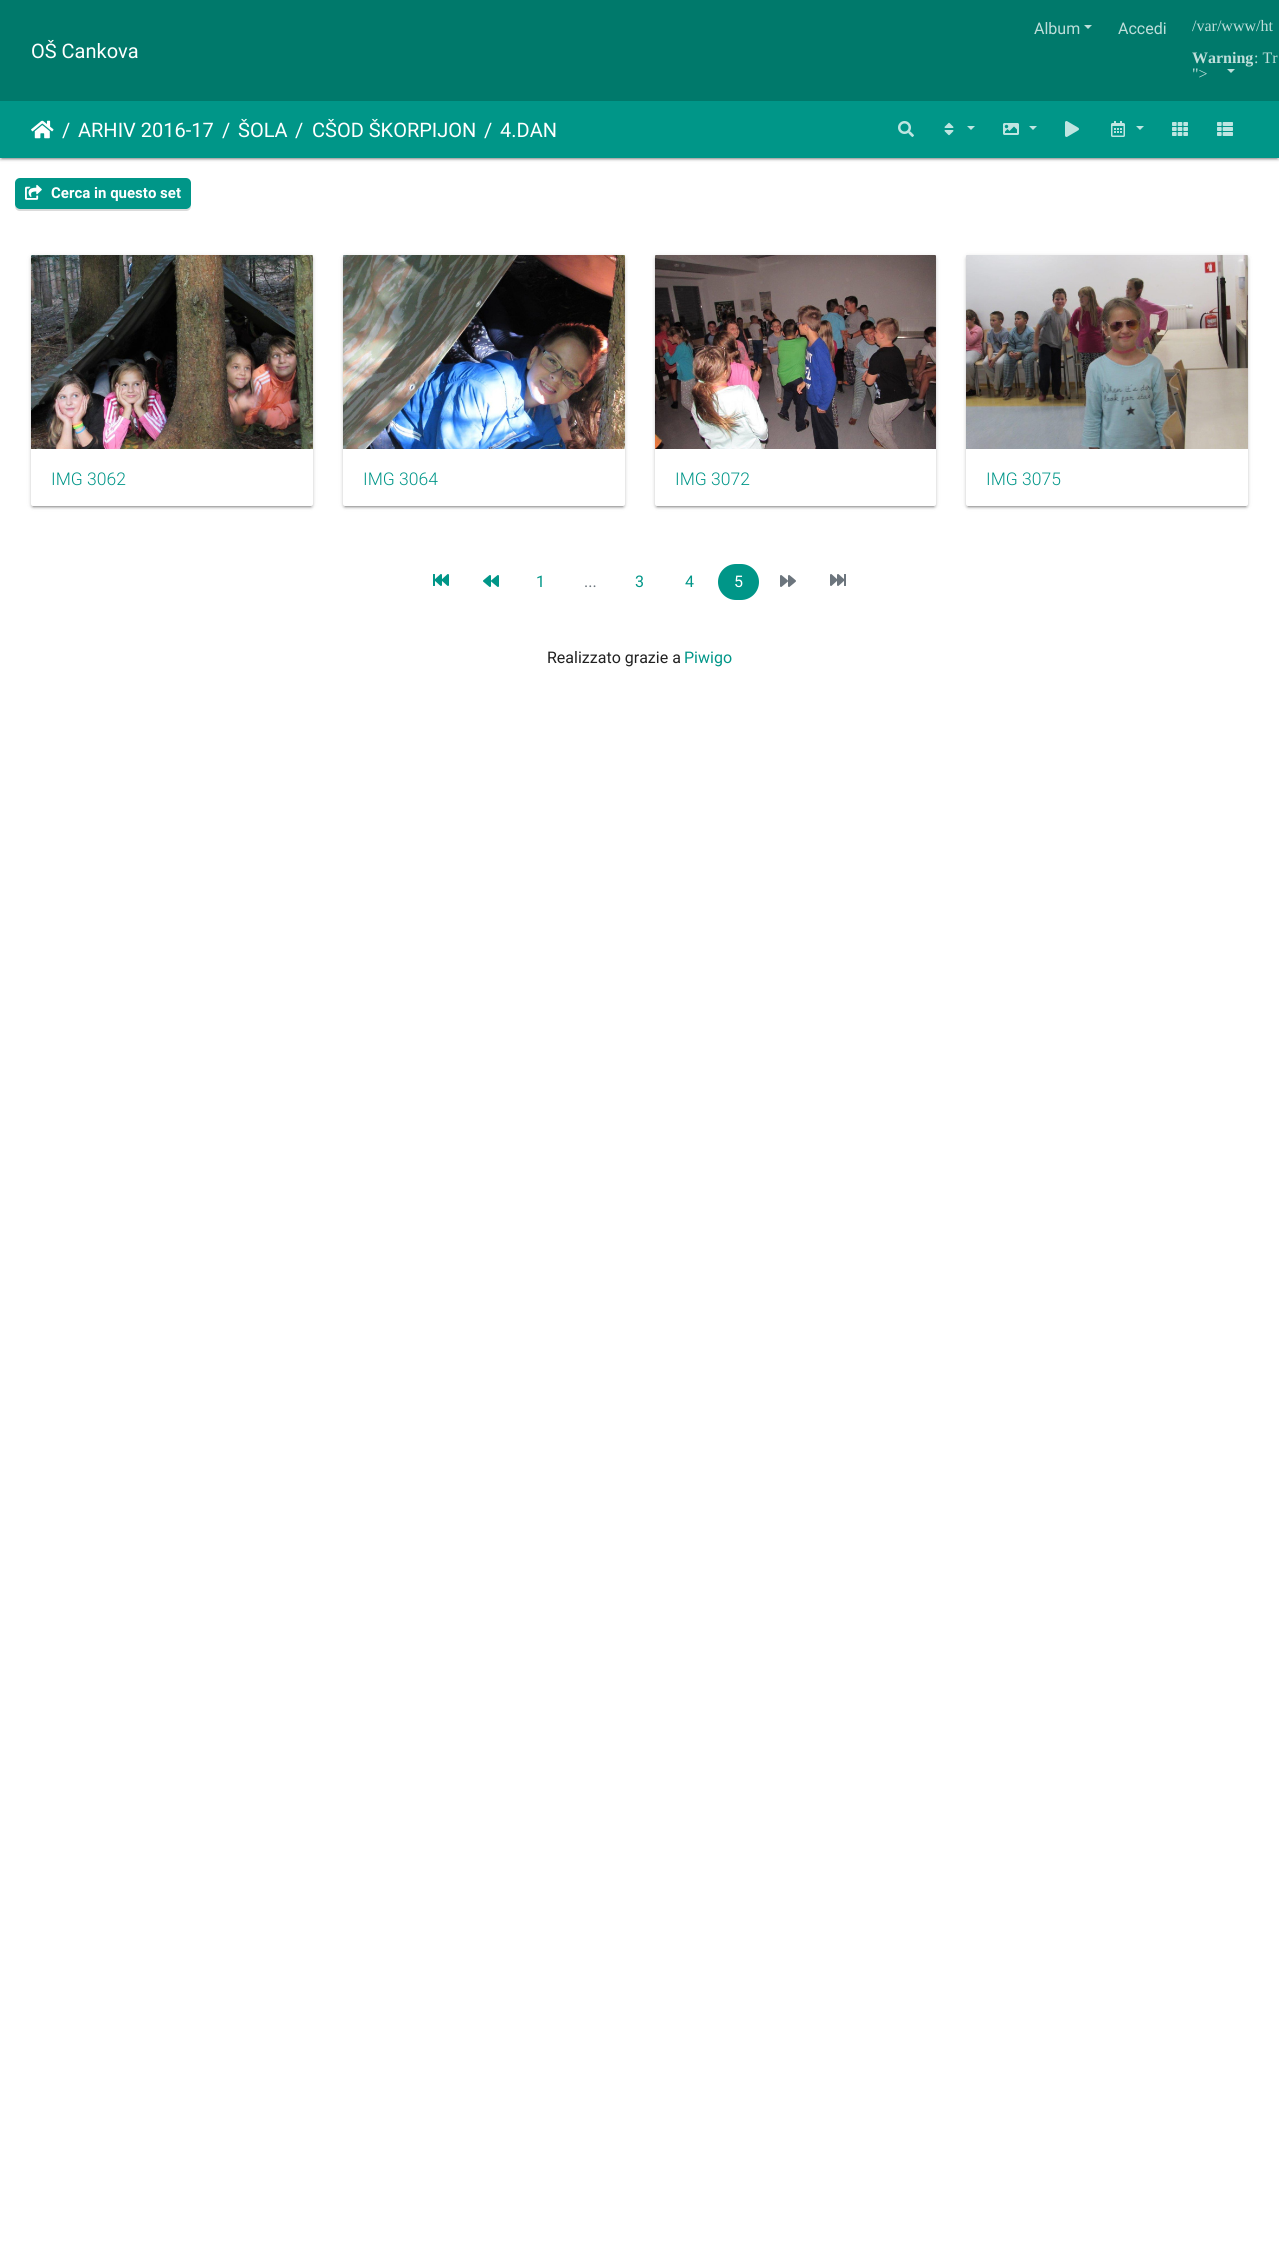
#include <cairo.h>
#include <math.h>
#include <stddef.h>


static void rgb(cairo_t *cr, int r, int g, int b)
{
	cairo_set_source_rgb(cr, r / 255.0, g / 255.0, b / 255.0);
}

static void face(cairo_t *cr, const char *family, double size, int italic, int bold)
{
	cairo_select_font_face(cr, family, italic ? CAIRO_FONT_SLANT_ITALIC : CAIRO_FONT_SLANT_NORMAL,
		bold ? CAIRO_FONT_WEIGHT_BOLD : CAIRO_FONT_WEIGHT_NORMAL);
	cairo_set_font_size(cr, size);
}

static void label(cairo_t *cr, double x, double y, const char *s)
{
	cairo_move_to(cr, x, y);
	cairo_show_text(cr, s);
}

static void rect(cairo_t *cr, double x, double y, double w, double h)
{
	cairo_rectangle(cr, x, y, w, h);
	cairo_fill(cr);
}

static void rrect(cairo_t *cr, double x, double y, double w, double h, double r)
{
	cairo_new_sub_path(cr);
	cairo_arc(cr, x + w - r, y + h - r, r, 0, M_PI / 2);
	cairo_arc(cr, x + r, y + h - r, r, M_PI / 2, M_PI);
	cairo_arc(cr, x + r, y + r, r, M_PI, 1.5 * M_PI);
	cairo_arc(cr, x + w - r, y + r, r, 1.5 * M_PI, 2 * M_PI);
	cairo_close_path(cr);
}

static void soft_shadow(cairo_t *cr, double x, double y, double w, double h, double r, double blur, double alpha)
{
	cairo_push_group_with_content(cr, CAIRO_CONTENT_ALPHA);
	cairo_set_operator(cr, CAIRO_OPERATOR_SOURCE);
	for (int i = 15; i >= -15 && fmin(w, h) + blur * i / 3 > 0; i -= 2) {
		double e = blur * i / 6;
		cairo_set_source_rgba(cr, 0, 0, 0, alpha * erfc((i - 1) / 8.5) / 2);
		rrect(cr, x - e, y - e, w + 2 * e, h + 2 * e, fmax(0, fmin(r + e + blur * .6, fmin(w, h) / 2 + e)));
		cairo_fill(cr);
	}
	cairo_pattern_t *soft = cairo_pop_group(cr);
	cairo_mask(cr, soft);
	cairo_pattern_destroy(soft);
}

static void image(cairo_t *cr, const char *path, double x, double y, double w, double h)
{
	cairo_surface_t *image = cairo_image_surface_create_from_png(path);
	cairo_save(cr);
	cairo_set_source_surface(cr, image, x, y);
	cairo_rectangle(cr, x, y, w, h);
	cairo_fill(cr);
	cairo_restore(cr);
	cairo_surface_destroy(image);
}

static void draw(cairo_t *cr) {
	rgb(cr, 255, 255, 255);
	cairo_paint(cr);
	rgb(cr, 0, 0, 0);
	soft_shadow(cr, 0, 102, 1279, 57, 0, 2.5, 0.12);
	soft_shadow(cr, 0, 103, 1279, 57, 0, 1, 0.14);
	rgb(cr, 0, 121, 107);
	rect(cr, 0, 0, 1279, 101);
	face(cr, "Roboto", 20, 0, 0);
	rgb(cr, 255, 255, 255);
	label(cr, 31, 58, "OŠ Cankova");
	face(cr, "Roboto", 16, 0, 0);
	rgb(cr, 191, 222, 218);
	label(cr, 1034, 34, "Album");
	cairo_new_path(cr);
	cairo_move_to(cr, 1084, 25);
	cairo_line_to(cr, 1092, 25);
	cairo_line_to(cr, 1088, 29);
	cairo_close_path(cr);
	cairo_fill(cr);
	label(cr, 1118, 34, "Accedi");
	face(cr, "Liberation Serif", 16, 0, 0);
	label(cr, 1192, 31, "/var/www/ht");
	face(cr, "Liberation Serif", 16, 0, 1);
	label(cr, 1192, 63, "Warning");
	face(cr, "Liberation Serif", 16, 0, 0);
	label(cr, 1254, 63, ": Tr");
	label(cr, 1192, 79, "\">");
	cairo_new_path(cr);
	cairo_move_to(cr, 1227, 69);
	cairo_line_to(cr, 1235, 69);
	cairo_line_to(cr, 1231, 73);
	cairo_close_path(cr);
	cairo_fill(cr);
	rgb(cr, 0, 0, 0);
	soft_shadow(cr, 2, 106, 1275, 53, 0, 0.5, 0.2);
	rgb(cr, 0, 150, 136);
	rect(cr, 0, 101, 1279, 57);
	image(cr, "image0.png", 31, 120, 23, 19);
	face(cr, "Roboto", 20, 0, 0);
	rgb(cr, 255, 255, 255);
	label(cr, 62, 137, "/");
	label(cr, 78, 137, "ARHIV 2016-17");
	label(cr, 222, 137, "/");
	label(cr, 238, 137, "ŠOLA");
	label(cr, 295, 137, "/");
	label(cr, 312, 137, "CŠOD ŠKORPIJON");
	label(cr, 484, 137, "/");
	label(cr, 500, 137, "4.DAN");
	image(cr, "image1.png", 898, 121, 16, 16);
	image(cr, "image2.png", 944, 122, 10, 14);
	rgb(cr, 191, 229, 225);
	cairo_new_path(cr);
	cairo_move_to(cr, 967, 126);
	cairo_line_to(cr, 975, 126);
	cairo_line_to(cr, 971, 130);
	cairo_close_path(cr);
	cairo_fill(cr);
	image(cr, "image3.png", 1003, 123, 16, 12);
	cairo_new_path(cr);
	cairo_move_to(cr, 1029, 126);
	cairo_line_to(cr, 1037, 126);
	cairo_line_to(cr, 1033, 130);
	cairo_close_path(cr);
	cairo_fill(cr);
	image(cr, "image4.png", 1065, 121, 14, 16);
	image(cr, "image5.png", 1111, 121, 14, 16);
	cairo_new_path(cr);
	cairo_move_to(cr, 1136, 126);
	cairo_line_to(cr, 1144, 126);
	cairo_line_to(cr, 1140, 130);
	cairo_close_path(cr);
	cairo_fill(cr);
	image(cr, "image6.png", 1172, 122, 16, 14);
	image(cr, "image7.png", 1217, 122, 16, 14);
	rgb(cr, 219, 219, 219);
	cairo_new_path(cr);
	cairo_move_to(cr, 15, 204);
	cairo_line_to(cr, 15, 206);
	cairo_curve_to(cr, 15, 209, 17, 211, 20, 211);
	cairo_line_to(cr, 186, 211);
	cairo_curve_to(cr, 189, 211, 191, 209, 191, 206);
	cairo_line_to(cr, 191, 204);
	cairo_curve_to(cr, 191, 207, 189, 209, 186, 209);
	cairo_line_to(cr, 20, 209);
	cairo_curve_to(cr, 17, 209, 15, 207, 15, 204);
	cairo_close_path(cr);
	cairo_fill(cr);
	rgb(cr, 0, 150, 136);
	rrect(cr, 15, 178, 176, 31, 5);
	cairo_fill(cr);
	image(cr, "image8.png", 25, 184, 17, 16);
	face(cr, "Roboto", 15, 0, 1);
	rgb(cr, 255, 255, 255);
	label(cr, 51, 198, "Cerca in questo set");
	rgb(cr, 0, 0, 0);
	soft_shadow(cr, 31, 256, 282, 251, 2, 2.5, 0.12);
	soft_shadow(cr, 33, 260, 278, 247, 0, 0.5, 0.2);
	soft_shadow(cr, 31, 257, 282, 251, 2, 1, 0.14);
	rgb(cr, 255, 255, 255);
	rrect(cr, 31, 255, 282, 251, 2);
	cairo_fill(cr);
	image(cr, "image9.png", 31, 255, 282, 194);
	face(cr, "Roboto Light", 17.5, 0, 0);
	rgb(cr, 0, 150, 136);
	label(cr, 51, 485, "IMG 3062");
	rgb(cr, 0, 0, 0);
	soft_shadow(cr, 343, 256, 282, 251, 2, 2.5, 0.12);
	soft_shadow(cr, 345, 260, 278, 247, 0, 0.5, 0.2);
	soft_shadow(cr, 343, 257, 282, 251, 2, 1, 0.14);
	rgb(cr, 255, 255, 255);
	rrect(cr, 343, 255, 282, 251, 2);
	cairo_fill(cr);
	image(cr, "image10.png", 343, 255, 282, 194);
	rgb(cr, 0, 150, 136);
	label(cr, 363, 485, "IMG 3064");
	rgb(cr, 0, 0, 0);
	soft_shadow(cr, 655, 256, 281, 251, 2, 2.5, 0.12);
	soft_shadow(cr, 657, 260, 277, 247, 0, 0.5, 0.2);
	soft_shadow(cr, 655, 257, 281, 251, 2, 1, 0.14);
	rgb(cr, 255, 255, 255);
	rrect(cr, 655, 255, 281, 251, 2);
	cairo_fill(cr);
	image(cr, "image11.png", 655, 255, 281, 194);
	rgb(cr, 0, 150, 136);
	label(cr, 675, 485, "IMG 3072");
	rgb(cr, 0, 0, 0);
	soft_shadow(cr, 966, 256, 282, 251, 2, 2.5, 0.12);
	soft_shadow(cr, 968, 260, 278, 247, 0, 0.5, 0.2);
	soft_shadow(cr, 966, 257, 282, 251, 2, 1, 0.14);
	rgb(cr, 255, 255, 255);
	rrect(cr, 966, 255, 282, 251, 2);
	cairo_fill(cr);
	image(cr, "image12.png", 966, 255, 282, 194);
	rgb(cr, 0, 150, 136);
	label(cr, 986, 485, "IMG 3075");
	image(cr, "image13.png", 433, 574, 16, 12);
	image(cr, "image14.png", 483, 575, 16, 12);
	face(cr, "Roboto", 16, 0, 0);
	label(cr, 536, 587, "1");
	rgb(cr, 108, 117, 125);
	label(cr, 584, 587, "...");
	rgb(cr, 0, 150, 136);
	label(cr, 635, 587, "3");
	label(cr, 685, 587, "4");
	rrect(cr, 718, 564, 41, 36, 18);
	cairo_fill(cr);
	rgb(cr, 255, 255, 255);
	label(cr, 734, 587, "5");
	image(cr, "image15.png", 780, 575, 16, 12);
	image(cr, "image16.png", 830, 574, 16, 12);
	rgb(cr, 33, 33, 33);
	label(cr, 547, 663, "Realizzato grazie a");
	rgb(cr, 0, 150, 136);
	label(cr, 684, 663, "Piwigo");
}

int main(void) {
	cairo_surface_t *surface = cairo_image_surface_create(CAIRO_FORMAT_RGB24, 1279, 2256);
	cairo_t *cr = cairo_create(surface);
	cairo_font_options_t *options = cairo_font_options_create();
	cairo_font_options_set_hint_metrics(options, CAIRO_HINT_METRICS_OFF);
	cairo_font_options_set_hint_style(options, CAIRO_HINT_STYLE_NONE);
	cairo_set_font_options(cr, options);
	cairo_set_miter_limit(cr, 4);
	draw(cr);
	cairo_surface_write_to_png(surface, "render.png");
	cairo_font_options_destroy(options);
	cairo_destroy(cr);
	cairo_surface_destroy(surface);
	return 0;
}
